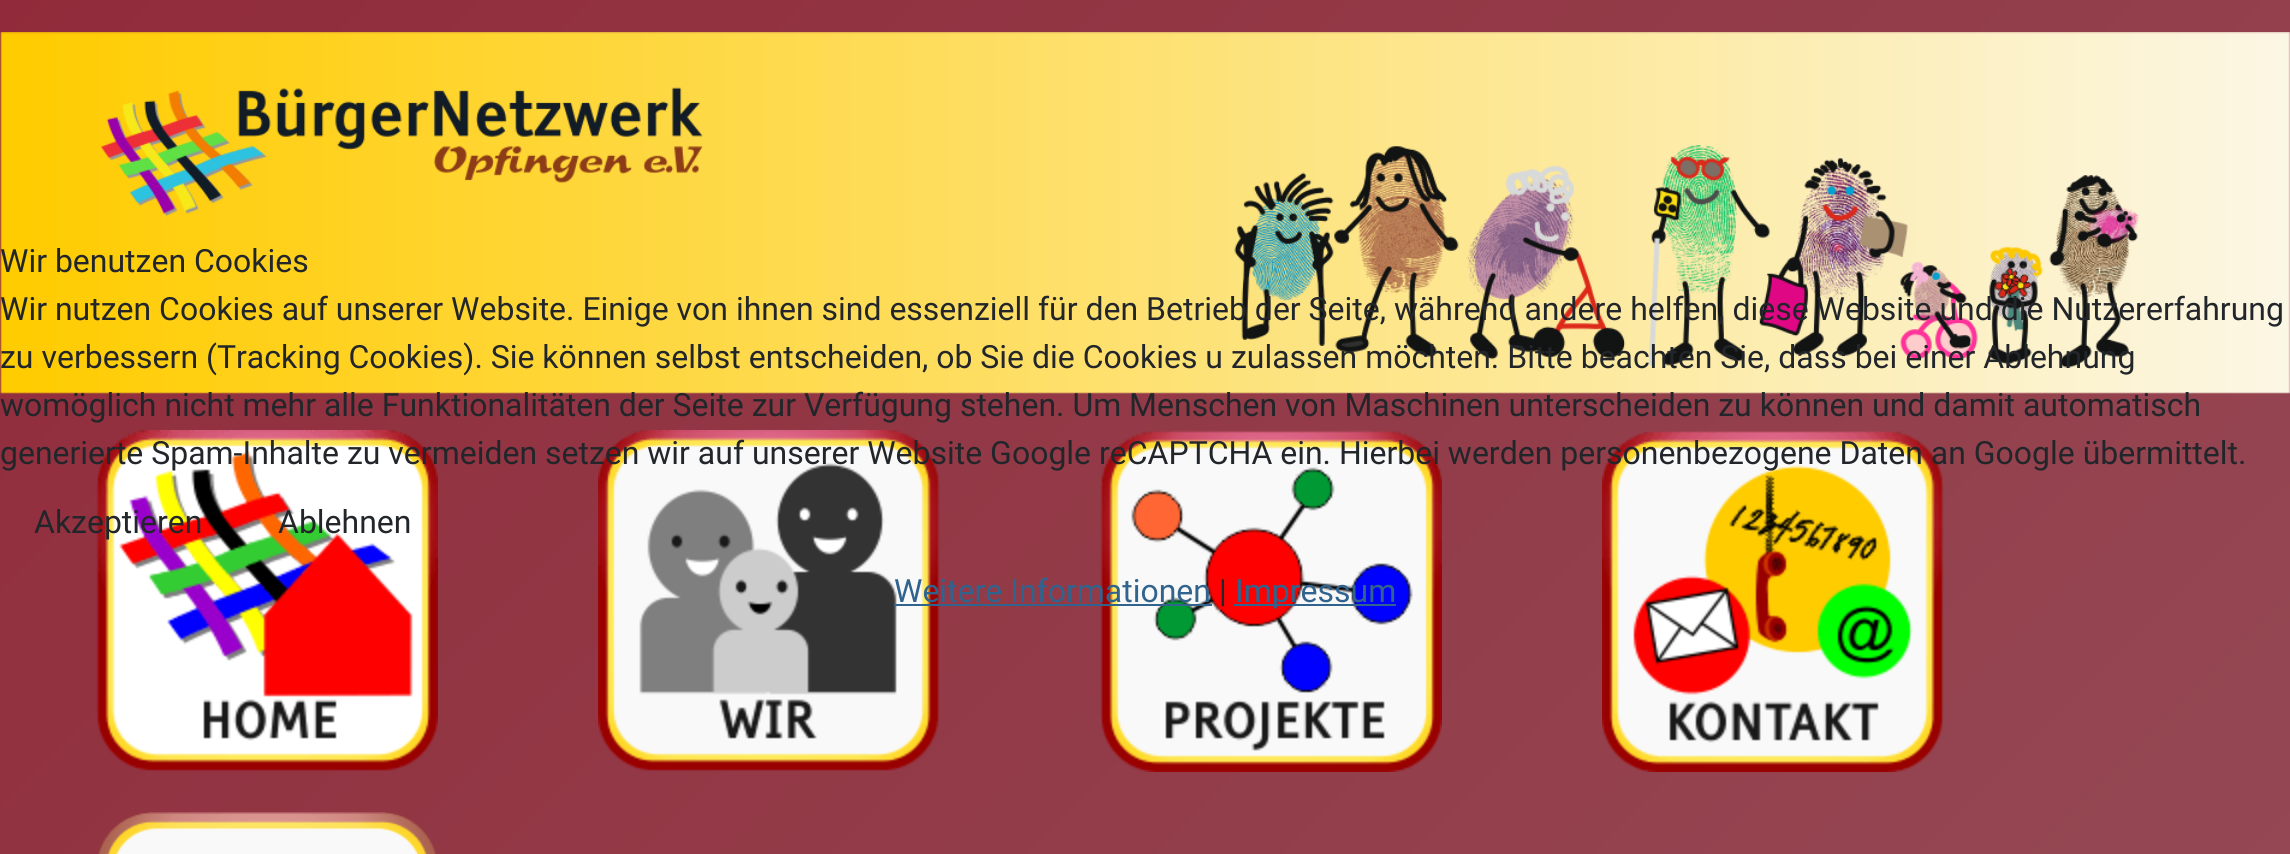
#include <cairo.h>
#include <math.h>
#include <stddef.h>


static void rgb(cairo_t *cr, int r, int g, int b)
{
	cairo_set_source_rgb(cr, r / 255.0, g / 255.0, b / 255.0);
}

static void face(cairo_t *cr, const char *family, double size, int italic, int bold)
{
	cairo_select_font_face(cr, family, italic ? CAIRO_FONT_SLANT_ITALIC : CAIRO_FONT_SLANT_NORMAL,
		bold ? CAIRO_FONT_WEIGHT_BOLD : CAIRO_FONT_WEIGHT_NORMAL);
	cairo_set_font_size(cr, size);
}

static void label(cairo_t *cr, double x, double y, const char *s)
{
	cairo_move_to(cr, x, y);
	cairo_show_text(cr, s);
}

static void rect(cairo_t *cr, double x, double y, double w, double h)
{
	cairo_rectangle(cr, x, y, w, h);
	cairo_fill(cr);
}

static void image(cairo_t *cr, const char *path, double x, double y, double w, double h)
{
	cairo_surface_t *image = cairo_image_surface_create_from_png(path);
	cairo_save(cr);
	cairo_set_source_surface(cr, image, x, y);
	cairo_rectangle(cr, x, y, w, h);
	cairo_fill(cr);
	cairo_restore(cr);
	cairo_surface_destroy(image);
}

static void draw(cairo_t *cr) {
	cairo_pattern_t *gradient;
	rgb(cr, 255, 255, 255);
	cairo_paint(cr);
	gradient = cairo_pattern_create_linear(275, -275, 2015, 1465);
	cairo_pattern_add_color_stop_rgba(gradient, 0, 0.569, 0.169, 0.231, 1);
	cairo_pattern_add_color_stop_rgba(gradient, 1, 0.584, 0.294, 0.337, 1);
	cairo_set_source(cr, gradient);
	cairo_pattern_destroy(gradient);
	rect(cr, 0, 0, 2290, 854);
	image(cr, "image0.png", 0, 32, 2290, 362);
	image(cr, "image1.png", 96, 430, 342, 341);
	image(cr, "image2.png", 598, 430, 342, 341);
	image(cr, "image3.png", 1100, 430, 342, 342);
	image(cr, "image4.png", 1602, 431, 342, 341);
	image(cr, "image5.png", 98, 812, 338, 42);
	face(cr, "Roboto", 32, 0, 0);
	rgb(cr, 34, 38, 42);
	label(cr, 0, 272, "Wir benutzen Cookies");
	label(cr, 0, 320, "Wir nutzen Cookies auf unserer Website. Einige von ihnen sind essenziell für den Betrieb der Seite, während andere helfen, diese Website und die Nutzererfahrung");
	label(cr, 0, 368, "zu verbessern (Tracking Cookies). Sie können selbst entscheiden, ob Sie die Cookies u zulassen möchten. Bitte beachten Sie, dass bei einer Ablehnung");
	label(cr, 0, 416, "womöglich nicht mehr alle Funktionalitäten der Seite zur Verfügung stehen. Um Menschen von Maschinen unterscheiden zu können und damit automatisch");
	label(cr, 0, 464, "generierte Spam-Inhalte zu vermeiden setzen wir auf unserer Website Google reCAPTCHA ein. Hierbei werden personenbezogene Daten an Google übermittelt.");
	label(cr, 34, 533, "Akzeptieren");
	label(cr, 278, 533, "Ablehnen");
	rgb(cr, 48, 99, 141);
	label(cr, 894, 602, "Weitere Informationen");
	rect(cr, 894, 604, 318, 2);
	rgb(cr, 34, 38, 42);
	label(cr, 1219, 602, "|");
	rgb(cr, 48, 99, 141);
	rect(cr, 1234, 604, 162, 2);
	label(cr, 1235, 602, "Impressum");
}

int main(void) {
	cairo_surface_t *surface = cairo_image_surface_create(CAIRO_FORMAT_RGB24, 2290, 854);
	cairo_t *cr = cairo_create(surface);
	cairo_font_options_t *options = cairo_font_options_create();
	cairo_font_options_set_hint_metrics(options, CAIRO_HINT_METRICS_OFF);
	cairo_font_options_set_hint_style(options, CAIRO_HINT_STYLE_NONE);
	cairo_set_font_options(cr, options);
	cairo_set_miter_limit(cr, 4);
	draw(cr);
	cairo_surface_write_to_png(surface, "render.png");
	cairo_font_options_destroy(options);
	cairo_destroy(cr);
	cairo_surface_destroy(surface);
	return 0;
}
